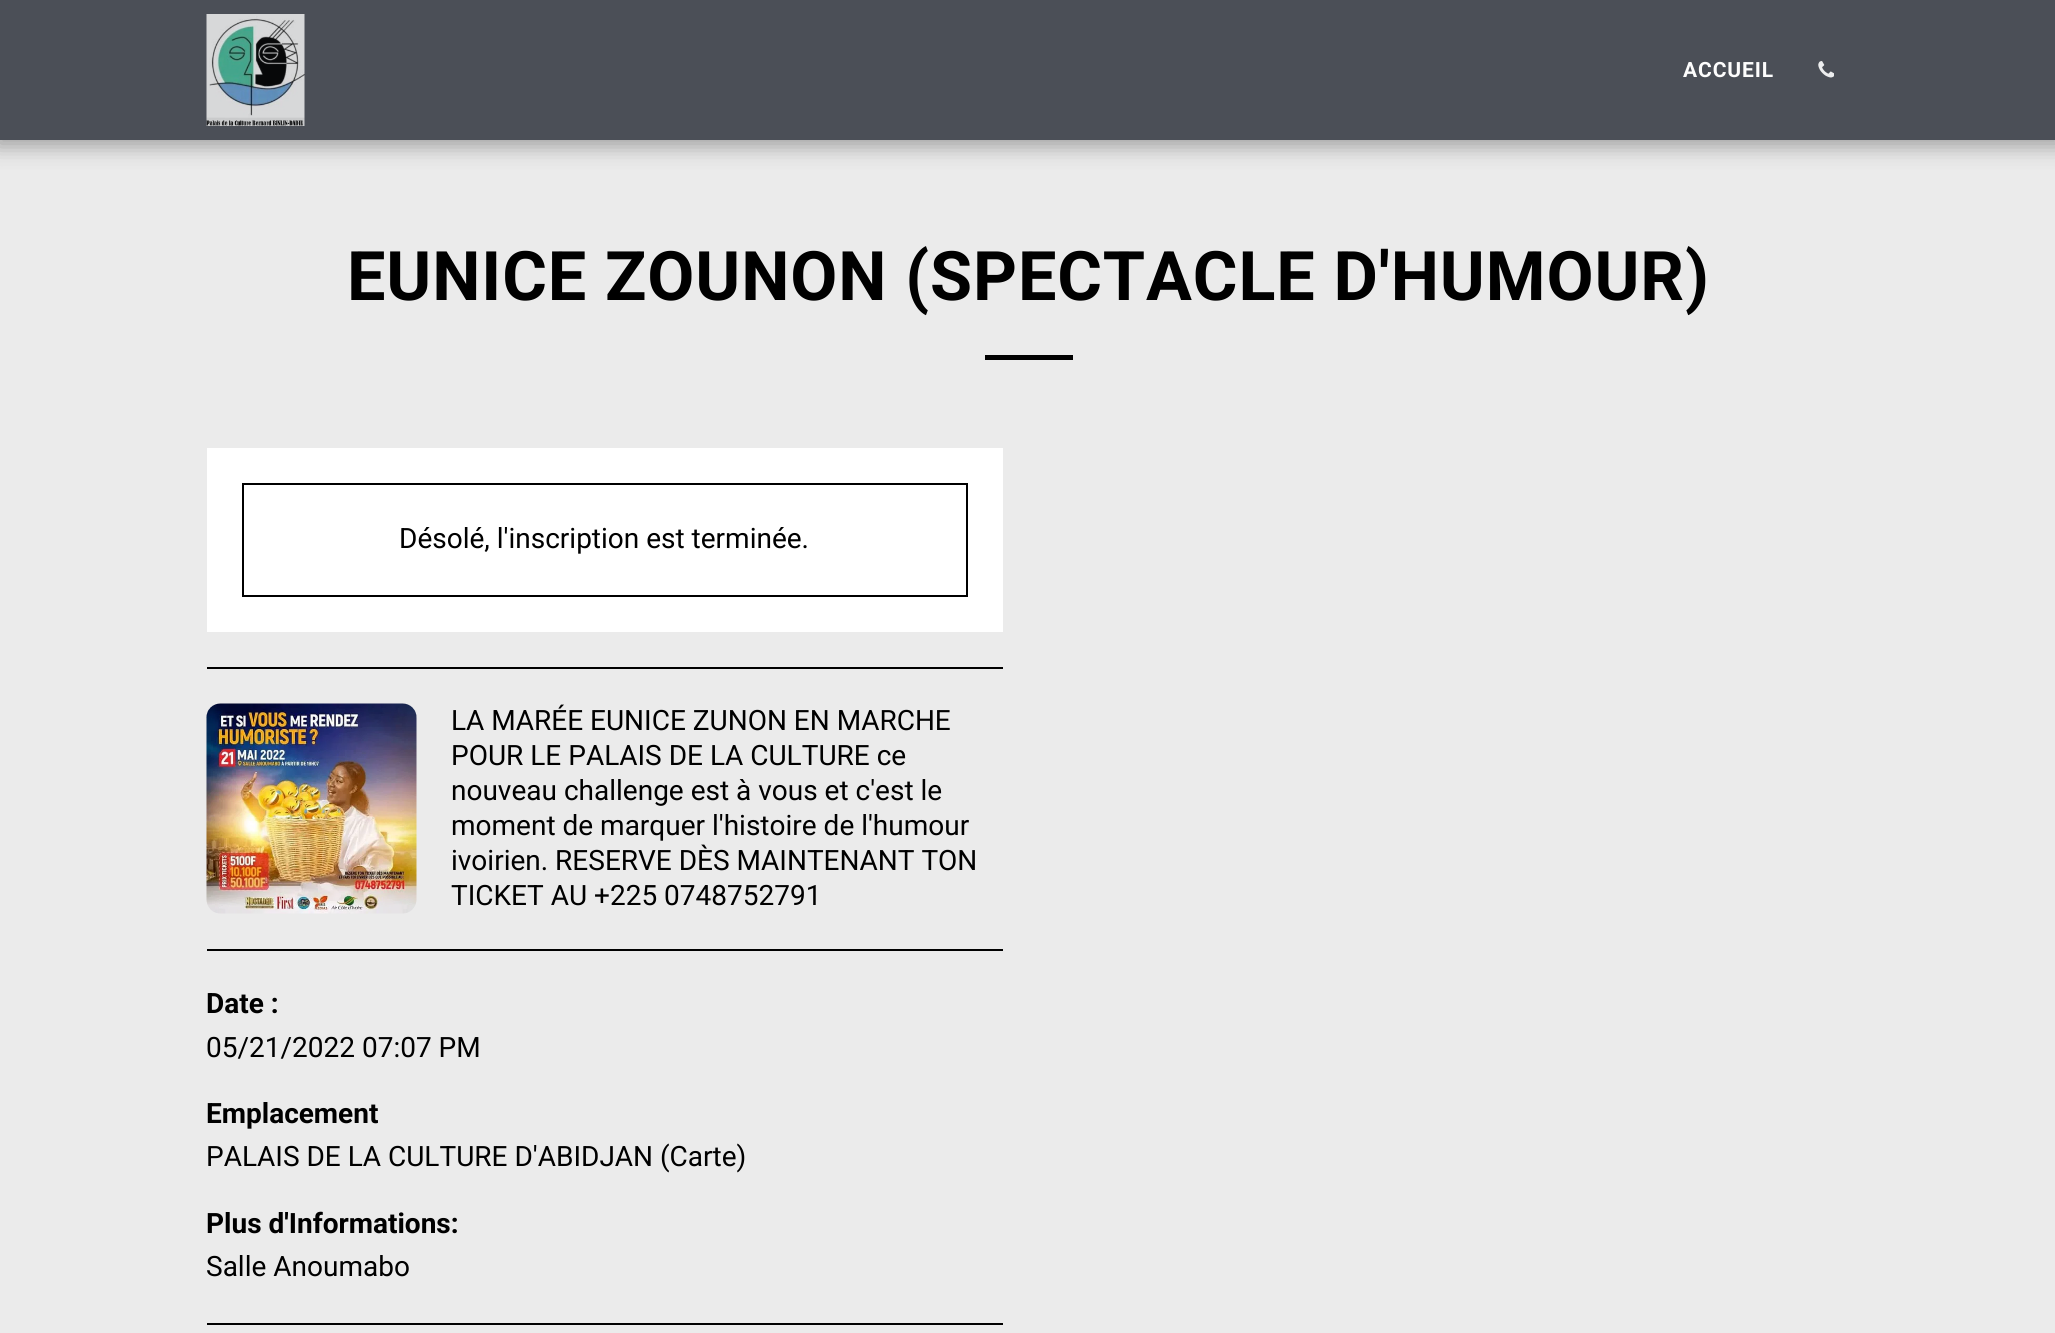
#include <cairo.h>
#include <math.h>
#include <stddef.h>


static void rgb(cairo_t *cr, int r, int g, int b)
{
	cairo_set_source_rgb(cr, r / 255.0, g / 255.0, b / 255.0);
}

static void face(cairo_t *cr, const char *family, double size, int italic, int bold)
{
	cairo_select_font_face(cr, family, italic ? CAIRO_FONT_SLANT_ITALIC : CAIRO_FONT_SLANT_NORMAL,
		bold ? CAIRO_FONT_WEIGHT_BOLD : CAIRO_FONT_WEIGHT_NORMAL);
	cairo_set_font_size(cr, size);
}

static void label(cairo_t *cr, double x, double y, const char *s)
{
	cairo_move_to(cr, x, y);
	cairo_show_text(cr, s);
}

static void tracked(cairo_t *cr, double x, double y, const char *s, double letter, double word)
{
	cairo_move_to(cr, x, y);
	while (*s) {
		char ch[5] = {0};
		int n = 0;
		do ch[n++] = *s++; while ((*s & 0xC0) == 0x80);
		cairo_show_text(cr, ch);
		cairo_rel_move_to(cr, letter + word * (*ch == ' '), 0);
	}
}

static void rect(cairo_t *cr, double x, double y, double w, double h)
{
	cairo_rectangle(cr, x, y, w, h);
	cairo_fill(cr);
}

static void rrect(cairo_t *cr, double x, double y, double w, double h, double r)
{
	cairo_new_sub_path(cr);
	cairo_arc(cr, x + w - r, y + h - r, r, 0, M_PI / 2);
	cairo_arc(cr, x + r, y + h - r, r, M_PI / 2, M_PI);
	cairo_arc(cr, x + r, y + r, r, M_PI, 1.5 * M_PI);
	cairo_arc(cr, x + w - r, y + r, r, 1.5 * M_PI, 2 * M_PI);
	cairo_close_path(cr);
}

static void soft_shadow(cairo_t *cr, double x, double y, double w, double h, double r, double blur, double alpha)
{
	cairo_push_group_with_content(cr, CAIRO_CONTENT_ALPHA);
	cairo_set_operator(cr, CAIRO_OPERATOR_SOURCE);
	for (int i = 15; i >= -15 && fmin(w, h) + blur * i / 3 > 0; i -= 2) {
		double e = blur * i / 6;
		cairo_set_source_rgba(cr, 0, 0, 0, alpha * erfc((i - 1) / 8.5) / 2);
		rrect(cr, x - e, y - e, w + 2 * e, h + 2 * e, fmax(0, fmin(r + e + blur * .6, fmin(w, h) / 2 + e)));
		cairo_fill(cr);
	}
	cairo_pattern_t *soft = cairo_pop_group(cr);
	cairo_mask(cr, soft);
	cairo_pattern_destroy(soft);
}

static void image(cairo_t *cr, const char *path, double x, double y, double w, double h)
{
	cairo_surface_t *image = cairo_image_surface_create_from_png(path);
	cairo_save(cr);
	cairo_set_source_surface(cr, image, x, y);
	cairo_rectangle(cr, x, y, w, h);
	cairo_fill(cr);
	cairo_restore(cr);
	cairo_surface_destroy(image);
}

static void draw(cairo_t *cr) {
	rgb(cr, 235, 235, 235);
	cairo_paint(cr);
	rgb(cr, 24, 24, 24);
	soft_shadow(cr, -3, 0, 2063, 147, 0, 10.5, 0.35);
	rgb(cr, 75, 79, 87);
	rect(cr, 0, 0, 2055, 140);
	image(cr, "image0.png", 206, 14, 99, 112);
	face(cr, "Roboto", 21, 0, 1);
	rgb(cr, 253, 253, 253);
	tracked(cr, 1683, 77, "ACCUEIL", 0.9, 0);
	image(cr, "image1.png", 1818, 61, 16, 17);
	face(cr, "Roboto", 68.3, 0, 1);
	rgb(cr, 0, 0, 0);
	tracked(cr, 347, 300, "EUNICE ZOUNON (SPECTACLE D'HUMOUR)", 0.9, 0);
	rect(cr, 985, 355, 88, 5);
	rgb(cr, 255, 255, 255);
	rect(cr, 207, 448, 796, 184);
	cairo_rectangle(cr, 243, 484, 724, 112);
	rgb(cr, 0, 0, 0);
	cairo_stroke(cr);
	face(cr, "Roboto", 28, 0, 0);
	label(cr, 399, 548, "Désolé, l'inscription est terminée.");
	rect(cr, 207, 667, 796, 2);
	image(cr, "image2.png", 206, 703, 211, 211);
	label(cr, 451, 730, "LA MARÉE EUNICE ZUNON EN MARCHE");
	label(cr, 451, 765, "POUR LE PALAIS DE LA CULTURE ce");
	label(cr, 451, 800, "nouveau challenge est à vous et c'est le");
	label(cr, 451, 835, "moment de marquer l'histoire de l'humour");
	label(cr, 451, 870, "ivoirien. RESERVE DÈS MAINTENANT TON");
	label(cr, 451, 905, "TICKET AU +225 0748752791");
	rect(cr, 207, 949, 796, 2);
	face(cr, "Roboto", 28, 0, 1);
	label(cr, 206, 1013, "Date :");
	face(cr, "Roboto", 28, 0, 0);
	label(cr, 206, 1057, "05/21/2022 07:07 PM");
	face(cr, "Roboto", 28, 0, 1);
	label(cr, 206, 1123, "Emplacement");
	face(cr, "Roboto", 28, 0, 0);
	label(cr, 206, 1166, "PALAIS DE LA CULTURE D'ABIDJAN (Carte)");
	face(cr, "Roboto", 28, 0, 1);
	label(cr, 206, 1233, "Plus d'Informations:");
	face(cr, "Roboto", 28, 0, 0);
	label(cr, 206, 1276, "Salle Anoumabo");
	rect(cr, 207, 1323, 796, 2);
}

int main(void) {
	cairo_surface_t *surface = cairo_image_surface_create(CAIRO_FORMAT_RGB24, 2055, 1333);
	cairo_t *cr = cairo_create(surface);
	cairo_font_options_t *options = cairo_font_options_create();
	cairo_font_options_set_hint_metrics(options, CAIRO_HINT_METRICS_OFF);
	cairo_font_options_set_hint_style(options, CAIRO_HINT_STYLE_NONE);
	cairo_set_font_options(cr, options);
	cairo_set_miter_limit(cr, 4);
	draw(cr);
	cairo_surface_write_to_png(surface, "render.png");
	cairo_font_options_destroy(options);
	cairo_destroy(cr);
	cairo_surface_destroy(surface);
	return 0;
}
